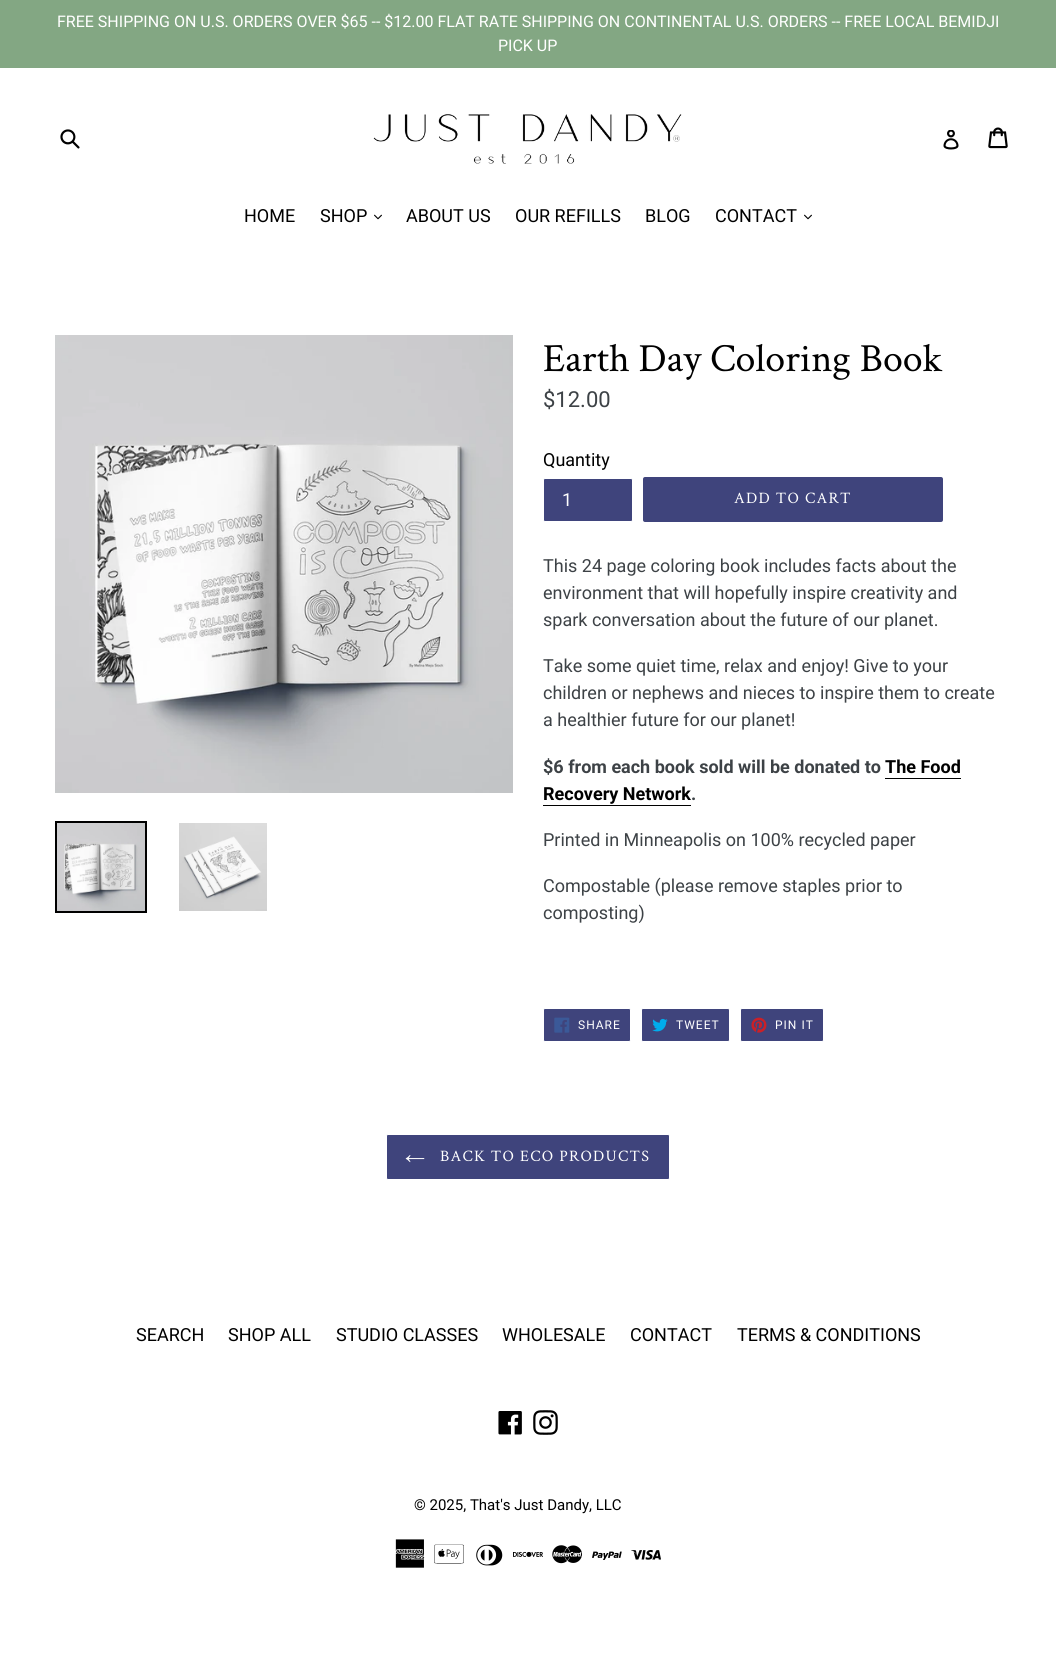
#include <cairo.h>
#include <math.h>
#include <stddef.h>


static void rgb(cairo_t *cr, int r, int g, int b)
{
	cairo_set_source_rgb(cr, r / 255.0, g / 255.0, b / 255.0);
}

static void face(cairo_t *cr, const char *family, double size, int italic, int bold)
{
	cairo_select_font_face(cr, family, italic ? CAIRO_FONT_SLANT_ITALIC : CAIRO_FONT_SLANT_NORMAL,
		bold ? CAIRO_FONT_WEIGHT_BOLD : CAIRO_FONT_WEIGHT_NORMAL);
	cairo_set_font_size(cr, size);
}

static void label(cairo_t *cr, double x, double y, const char *s)
{
	cairo_move_to(cr, x, y);
	cairo_show_text(cr, s);
}

static void tracked(cairo_t *cr, double x, double y, const char *s, double letter, double word)
{
	cairo_move_to(cr, x, y);
	while (*s) {
		char ch[5] = {0};
		int n = 0;
		do ch[n++] = *s++; while ((*s & 0xC0) == 0x80);
		cairo_show_text(cr, ch);
		cairo_rel_move_to(cr, letter + word * (*ch == ' '), 0);
	}
}

static void rect(cairo_t *cr, double x, double y, double w, double h)
{
	cairo_rectangle(cr, x, y, w, h);
	cairo_fill(cr);
}

static void rrect(cairo_t *cr, double x, double y, double w, double h, double r)
{
	cairo_new_sub_path(cr);
	cairo_arc(cr, x + w - r, y + h - r, r, 0, M_PI / 2);
	cairo_arc(cr, x + r, y + h - r, r, M_PI / 2, M_PI);
	cairo_arc(cr, x + r, y + r, r, M_PI, 1.5 * M_PI);
	cairo_arc(cr, x + w - r, y + r, r, 1.5 * M_PI, 2 * M_PI);
	cairo_close_path(cr);
}

static void image(cairo_t *cr, const char *path, double x, double y, double w, double h)
{
	cairo_surface_t *image = cairo_image_surface_create_from_png(path);
	cairo_save(cr);
	cairo_set_source_surface(cr, image, x, y);
	cairo_rectangle(cr, x, y, w, h);
	cairo_fill(cr);
	cairo_restore(cr);
	cairo_surface_destroy(image);
}

static void draw(cairo_t *cr) {
	rgb(cr, 255, 255, 255);
	cairo_paint(cr);
	rgb(cr, 131, 167, 131);
	rect(cr, 0, 0, 1056, 68);
	face(cr, "Roboto", 16, 0, 0);
	rgb(cr, 255, 255, 255);
	label(cr, 57, 27, "FREE SHIPPING ON U.S. ORDERS OVER $65 -- $12.00 FLAT RATE SHIPPING ON CONTINENTAL U.S. ORDERS -- FREE LOCAL BEMIDJI");
	label(cr, 498, 51, "PICK UP");
	image(cr, "image0.png", 60, 129, 20, 20);
	image(cr, "image1.png", 373, 114, 309, 50);
	image(cr, "image2.png", 943, 130, 16, 20);
	image(cr, "image3.png", 988, 127, 20, 22);
	face(cr, "Roboto", 18, 0, 0);
	rgb(cr, 0, 0, 0);
	label(cr, 244, 222, "HOME");
	label(cr, 320, 222, "SHOP");
	image(cr, "image4.png", 374, 214, 8, 6);
	label(cr, 406, 222, "ABOUT US");
	label(cr, 515, 222, "OUR REFILLS");
	label(cr, 645, 222, "BLOG");
	label(cr, 715, 222, "CONTACT");
	image(cr, "image4.png", 804, 214, 8, 6);
	image(cr, "image5.png", 55, 335, 458, 458);
	cairo_rectangle(cr, 56, 822, 90, 90);
	cairo_stroke(cr);
	image(cr, "image6.png", 57, 823, 88, 88);
	image(cr, "image7.png", 179, 823, 88, 88);
	face(cr, "Crimson Text", 40, 0, 0);
	label(cr, 543, 371, "Earth Day Coloring Book");
	face(cr, "Roboto", 22, 0, 0);
	rgb(cr, 61, 66, 70);
	label(cr, 543, 407, "$12.00");
	face(cr, "Roboto", 18, 0, 0);
	rgb(cr, 0, 0, 0);
	label(cr, 543, 466, "Quantity");
	rgb(cr, 63, 68, 124);
	rrect(cr, 543.5, 478.5, 89, 43, 1.5);
	cairo_fill_preserve(cr);
	rgb(cr, 255, 255, 255);
	cairo_set_line_width(cr, 1);
	cairo_stroke(cr);
	label(cr, 562, 506, "1");
	rgb(cr, 63, 68, 124);
	rrect(cr, 643, 477, 300, 45, 2);
	cairo_fill(cr);
	face(cr, "Crimson Text", 16, 0, 0);
	rgb(cr, 255, 255, 255);
	tracked(cr, 734, 503, "ADD TO CART", 1.25, 0);
	face(cr, "Roboto", 18, 0, 0);
	rgb(cr, 61, 66, 70);
	label(cr, 543, 572, "This 24 page coloring book includes facts about the");
	label(cr, 543, 599, "environment that will hopefully inspire creativity and");
	label(cr, 543, 626, "spark conversation about the future of our planet.");
	label(cr, 543, 672, "Take some quiet time, relax and enjoy! Give to your");
	label(cr, 543, 699, "children or nephews and nieces to inspire them to create");
	label(cr, 543, 726, "a healthier future for our planet!");
	face(cr, "Roboto", 18, 0, 1);
	label(cr, 543, 773, "$6 from each book sold will be donated to");
	rgb(cr, 0, 0, 0);
	label(cr, 885, 773, "The Food");
	rect(cr, 885, 778, 76, 1);
	label(cr, 543, 800, "Recovery Network");
	rgb(cr, 61, 66, 70);
	label(cr, 691, 800, ".");
	rgb(cr, 0, 0, 0);
	rect(cr, 543, 805, 148, 1);
	face(cr, "Roboto", 18, 0, 0);
	rgb(cr, 61, 66, 70);
	label(cr, 543, 846, "Printed in Minneapolis on 100% recycled paper");
	label(cr, 543, 892, "Compostable (please remove staples prior to");
	label(cr, 543, 919, "composting)");
	rgb(cr, 63, 68, 124);
	rrect(cr, 543.5, 1008.5, 87, 33, 1.5);
	cairo_fill_preserve(cr);
	rgb(cr, 255, 255, 255);
	cairo_stroke(cr);
	image(cr, "image8.png", 554, 1017, 16, 16);
	face(cr, "Roboto", 12, 0, 0);
	tracked(cr, 578, 1029, "SHARE", 1, 0);
	rgb(cr, 63, 68, 124);
	rrect(cr, 641.5, 1008.5, 88, 33, 1.5);
	cairo_fill_preserve(cr);
	rgb(cr, 255, 255, 255);
	cairo_stroke(cr);
	image(cr, "image9.png", 652, 1018, 16, 14);
	tracked(cr, 676, 1029, "TWEET", 1, 0);
	rgb(cr, 63, 68, 124);
	rrect(cr, 740.5, 1008.5, 83, 33, 1.5);
	cairo_fill_preserve(cr);
	rgb(cr, 255, 255, 255);
	cairo_stroke(cr);
	image(cr, "image10.png", 751, 1017, 16, 16);
	tracked(cr, 775, 1029, "PIN IT", 1, 0);
	rgb(cr, 63, 68, 124);
	rrect(cr, 386.5, 1134.5, 283, 45, 1.5);
	cairo_fill_preserve(cr);
	rgb(cr, 255, 255, 255);
	cairo_stroke(cr);
	image(cr, "image11.png", 405, 1155, 20, 8);
	face(cr, "Crimson Text", 16, 0, 0);
	tracked(cr, 440, 1161, "BACK TO ECO PRODUCTS", 1.25, 0);
	face(cr, "Roboto", 18, 0, 0);
	rgb(cr, 0, 0, 0);
	label(cr, 136, 1341, "SEARCH");
	label(cr, 228, 1341, "SHOP ALL");
	label(cr, 336, 1341, "STUDIO CLASSES");
	label(cr, 502, 1341, "WHOLESALE");
	label(cr, 630, 1341, "CONTACT");
	label(cr, 737, 1341, "TERMS & CONDITIONS");
	image(cr, "image12.png", 498, 1411, 24, 24);
	image(cr, "image13.png", 533, 1410, 25, 25);
	face(cr, "Roboto", 15, 0, 0);
	label(cr, 414, 1510, "© 2025, That's Just Dandy, LLC");
	image(cr, "image14.png", 395, 1539, 30, 29);
	image(cr, "image15.png", 434, 1544, 30, 20);
	image(cr, "image16.png", 476, 1544, 27, 22);
	image(cr, "image17.png", 513, 1551, 30, 6);
	image(cr, "image18.png", 552, 1545, 30, 19);
	image(cr, "image19.png", 592, 1551, 30, 9);
	image(cr, "image20.png", 631, 1550, 30, 10);
}

int main(void) {
	cairo_surface_t *surface = cairo_image_surface_create(CAIRO_FORMAT_RGB24, 1056, 1661);
	cairo_t *cr = cairo_create(surface);
	cairo_font_options_t *options = cairo_font_options_create();
	cairo_font_options_set_hint_metrics(options, CAIRO_HINT_METRICS_OFF);
	cairo_font_options_set_hint_style(options, CAIRO_HINT_STYLE_NONE);
	cairo_set_font_options(cr, options);
	cairo_set_miter_limit(cr, 4);
	draw(cr);
	cairo_surface_write_to_png(surface, "render.png");
	cairo_font_options_destroy(options);
	cairo_destroy(cr);
	cairo_surface_destroy(surface);
	return 0;
}
